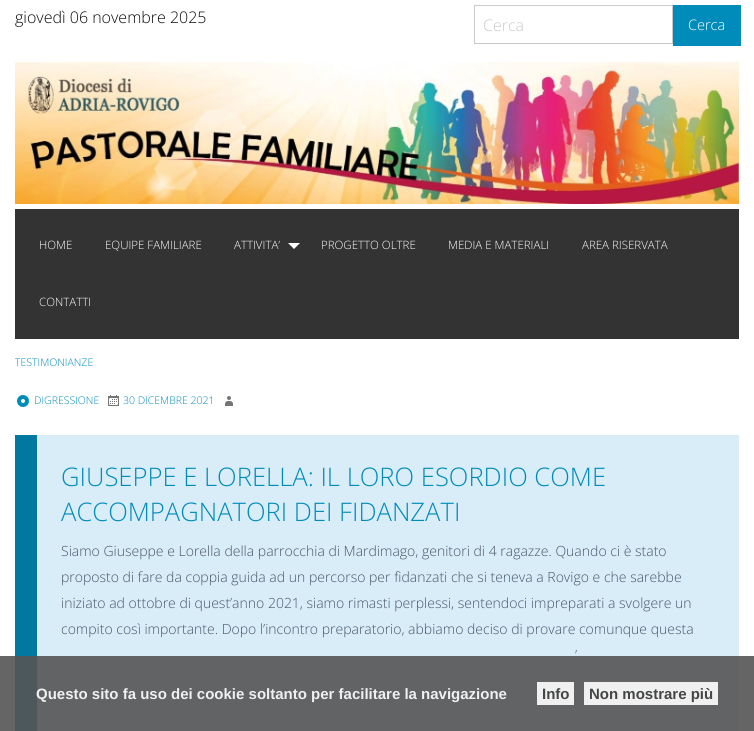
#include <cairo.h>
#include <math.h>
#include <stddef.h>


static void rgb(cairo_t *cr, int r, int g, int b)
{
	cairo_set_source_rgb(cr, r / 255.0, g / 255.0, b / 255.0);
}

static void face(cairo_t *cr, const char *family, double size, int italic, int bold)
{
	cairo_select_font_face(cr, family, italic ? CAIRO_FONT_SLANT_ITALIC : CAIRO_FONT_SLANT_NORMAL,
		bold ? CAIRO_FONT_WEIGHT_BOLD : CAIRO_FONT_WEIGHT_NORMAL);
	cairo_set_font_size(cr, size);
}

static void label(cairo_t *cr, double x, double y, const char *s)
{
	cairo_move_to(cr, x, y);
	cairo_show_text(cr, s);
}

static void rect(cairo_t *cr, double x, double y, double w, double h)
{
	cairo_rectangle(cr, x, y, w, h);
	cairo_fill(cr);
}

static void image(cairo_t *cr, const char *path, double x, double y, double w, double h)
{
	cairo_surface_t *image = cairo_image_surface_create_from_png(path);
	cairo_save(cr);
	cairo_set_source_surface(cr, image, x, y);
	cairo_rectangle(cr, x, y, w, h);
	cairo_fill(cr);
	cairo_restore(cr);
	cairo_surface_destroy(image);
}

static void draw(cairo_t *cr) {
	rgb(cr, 255, 255, 255);
	cairo_paint(cr);
	face(cr, "Open Sans Light", 16, 0, 0);
	rgb(cr, 10, 10, 10);
	label(cr, 15, 23, "giovedì 06 novembre 2025");
	cairo_rectangle(cr, 474.5, 5.5, 198, 38);
	rgb(cr, 202, 202, 202);
	cairo_set_line_width(cr, 1);
	cairo_stroke(cr);
	label(cr, 483, 31, "Cerca");
	rgb(cr, 0, 140, 186);
	rect(cr, 673, 5, 68, 41);
	face(cr, "Open Sans Light", 14.5, 0, 0);
	rgb(cr, 255, 255, 255);
	label(cr, 688, 30, "Cerca");
	image(cr, "image0.png", 15, 62, 724, 142);
	rgb(cr, 51, 51, 51);
	rect(cr, 15, 209, 724, 130);
	face(cr, "Open Sans Light", 11.5, 0, 0);
	rgb(cr, 255, 255, 255);
	label(cr, 39, 249, "HOME");
	label(cr, 105, 249, "EQUIPE FAMILIARE");
	label(cr, 234, 249, "ATTIVITA’");
	cairo_new_path(cr);
	cairo_move_to(cr, 288, 243);
	cairo_line_to(cr, 300, 243);
	cairo_line_to(cr, 294, 249);
	cairo_close_path(cr);
	cairo_fill(cr);
	label(cr, 321, 249, "PROGETTO OLTRE");
	label(cr, 448, 249, "MEDIA E MATERIALI");
	label(cr, 582, 249, "AREA RISERVATA");
	label(cr, 39, 306, "CONTATTI");
	face(cr, "Open Sans Light", 10.5, 0, 0);
	rgb(cr, 0, 140, 186);
	label(cr, 15, 366, "TESTIMONIANZE");
	image(cr, "image1.png", 17, 395, 12, 12);
	label(cr, 34, 404, "DIGRESSIONE");
	image(cr, "image2.png", 108, 395, 11, 11);
	label(cr, 123, 404, "30 DICEMBRE 2021");
	image(cr, "image3.png", 225, 396, 8, 10);
	rgb(cr, 217, 237, 248);
	rect(cr, 37, 435, 702, 296);
	rgb(cr, 0, 120, 160);
	rect(cr, 15, 435, 22, 296);
	face(cr, "Open Sans Light", 25.6, 0, 0);
	rgb(cr, 0, 140, 186);
	label(cr, 61, 486, "GIUSEPPE E LORELLA: IL LORO ESORDIO COME");
	label(cr, 61, 521, "ACCOMPAGNATORI DEI FIDANZATI");
	face(cr, "Open Sans Light", 14, 0, 0);
	rgb(cr, 74, 84, 102);
	label(cr, 61, 556, "Siamo Giuseppe e Lorella della parrocchia di Mardimago, genitori di 4 ragazze. Quando ci è stato");
	label(cr, 61, 582, "proposto di fare da coppia guida ad un percorso per fidanzati che si teneva a Rovigo e che sarebbe");
	label(cr, 61, 608, "iniziato ad ottobre di quest’anno 2021, siamo rimasti perplessi, sentendoci impreparati a svolgere un");
	label(cr, 61, 634, "compito così importante. Dopo l’incontro preparatorio, abbiamo deciso di provare comunque questa");
	label(cr, 575, 660, "’");
	cairo_set_source_rgba(cr, 0.333, 0.333, 0.333, 0.9);
	rect(cr, 0, 656, 754, 75);
	face(cr, "Liberation Sans", 15, 0, 1);
	rgb(cr, 239, 240, 240);
	label(cr, 36, 699, "Questo sito fa uso dei cookie soltanto per facilitare la navigazione");
	cairo_set_source_rgba(cr, 1, 1, 1, 0.9);
	rect(cr, 537, 682, 37, 23);
	rgb(cr, 68, 70, 71);
	label(cr, 542, 699, "Info");
	cairo_set_source_rgba(cr, 1, 1, 1, 0.9);
	rect(cr, 584, 682, 134, 23);
	rgb(cr, 68, 70, 71);
	label(cr, 589, 699, "Non mostrare più");
}

int main(void) {
	cairo_surface_t *surface = cairo_image_surface_create(CAIRO_FORMAT_RGB24, 754, 731);
	cairo_t *cr = cairo_create(surface);
	cairo_font_options_t *options = cairo_font_options_create();
	cairo_font_options_set_hint_metrics(options, CAIRO_HINT_METRICS_OFF);
	cairo_font_options_set_hint_style(options, CAIRO_HINT_STYLE_NONE);
	cairo_set_font_options(cr, options);
	cairo_set_miter_limit(cr, 4);
	draw(cr);
	cairo_surface_write_to_png(surface, "render.png");
	cairo_font_options_destroy(options);
	cairo_destroy(cr);
	cairo_surface_destroy(surface);
	return 0;
}
